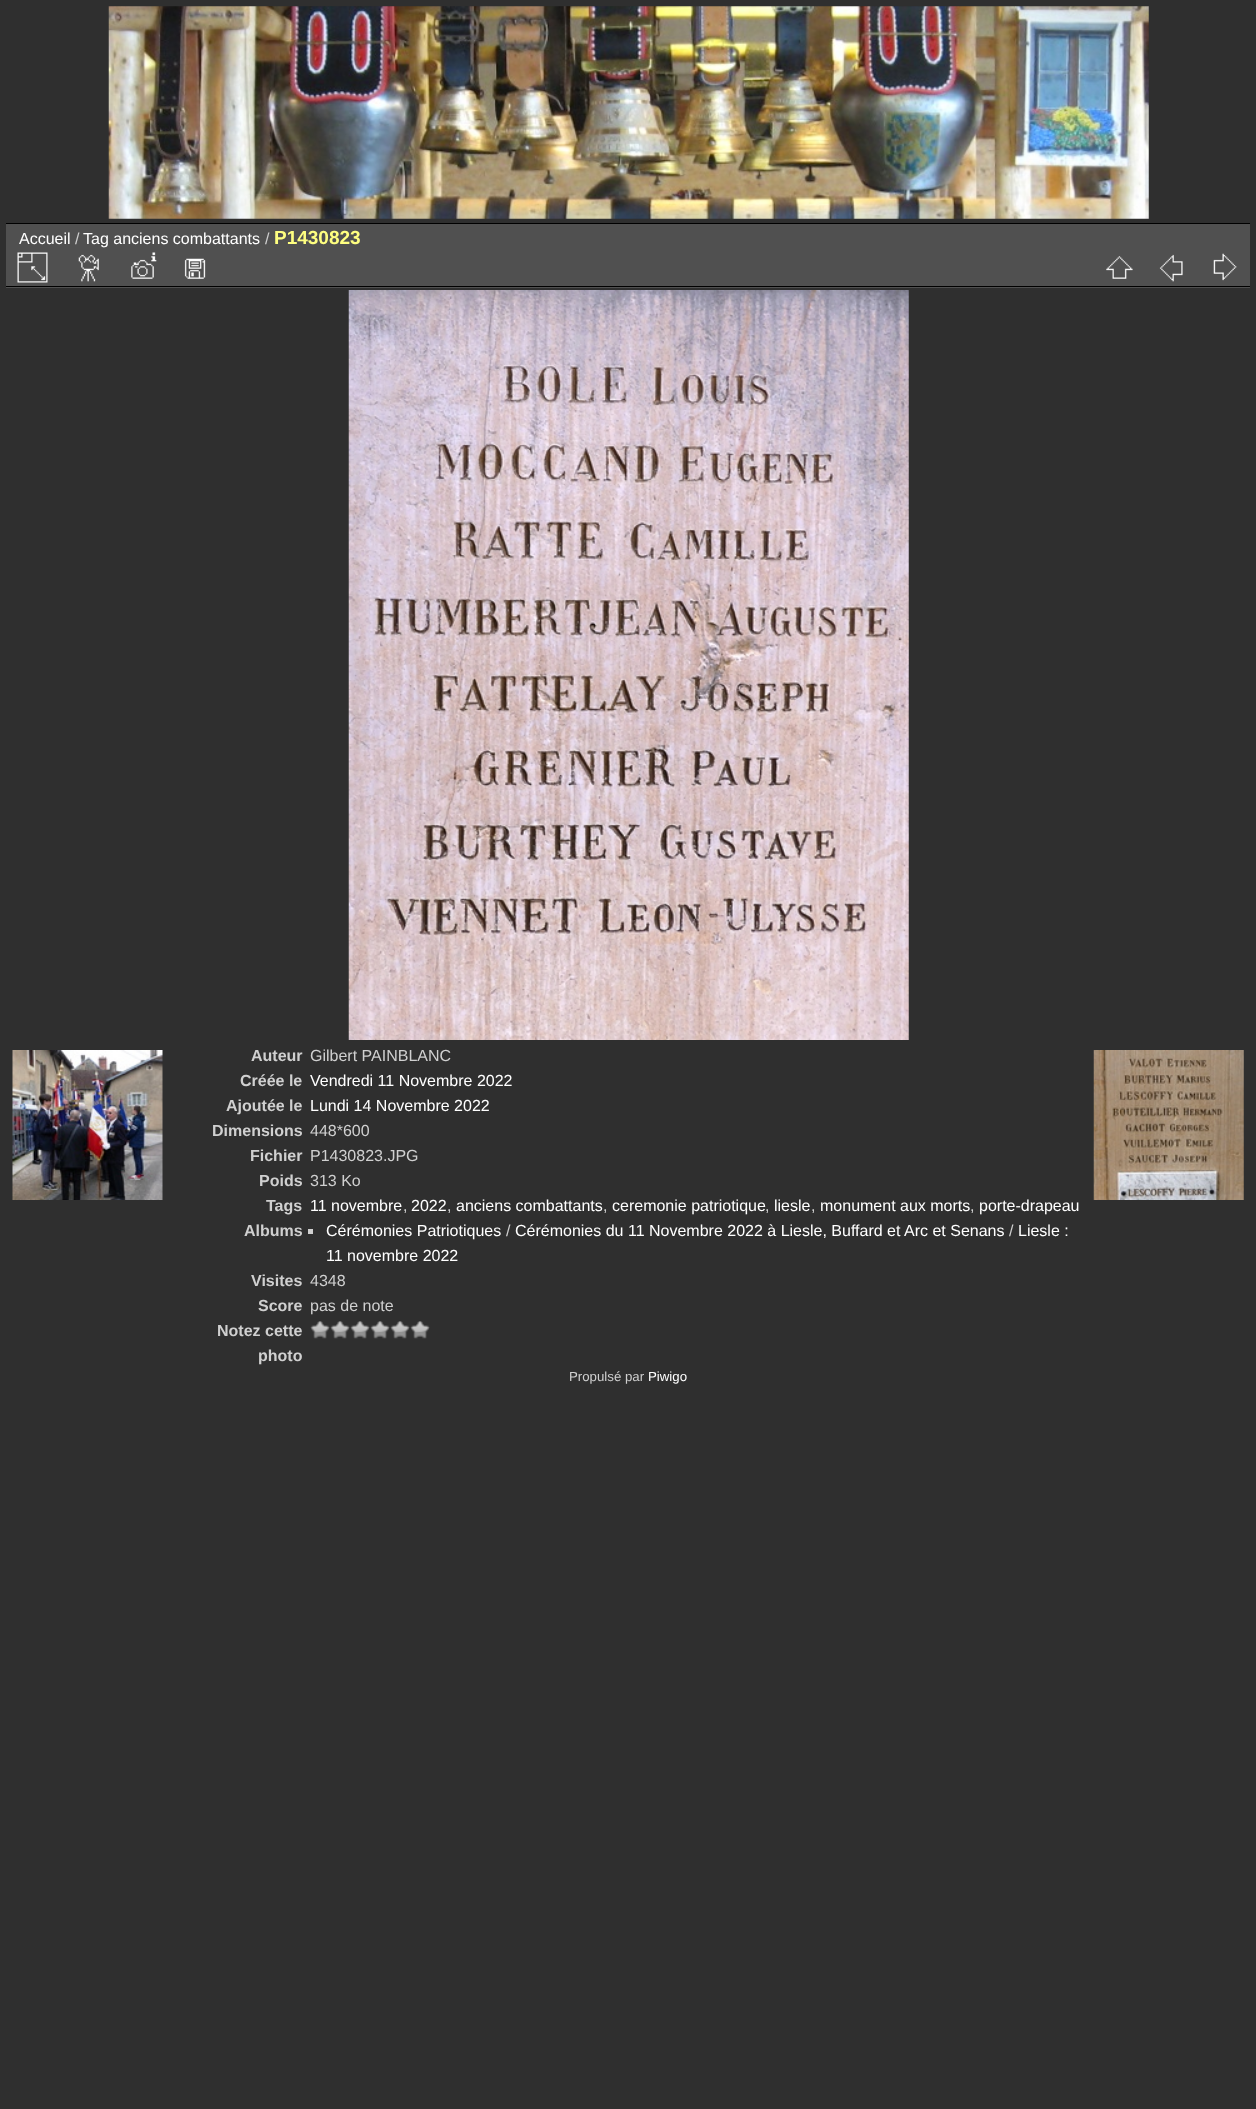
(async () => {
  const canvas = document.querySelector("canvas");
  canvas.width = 1256;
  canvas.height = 2109;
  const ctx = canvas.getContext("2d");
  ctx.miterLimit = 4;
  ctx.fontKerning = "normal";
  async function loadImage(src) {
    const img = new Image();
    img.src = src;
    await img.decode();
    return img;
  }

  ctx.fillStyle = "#2f2f2f";
  ctx.fillRect(0, 0, 1256, 2109);
  ctx.drawImage(await loadImage("img/1.png"), 108, 6, 1041, 213);
  ctx.fillStyle = "#505050";
  ctx.fillRect(6, 224, 1244, 64);
  ctx.fillStyle = "#000000";
  ctx.fillRect(6, 286, 1244, 1);
  ctx.drawImage(await loadImage("img/2.png"), 17, 252, 31, 31);
  ctx.drawImage(await loadImage("img/3.png"), 78, 254, 21, 28);
  ctx.drawImage(await loadImage("img/4.png"), 131, 252, 26, 27);
  ctx.drawImage(await loadImage("img/5.png"), 184, 258, 22, 21);
  ctx.drawImage(await loadImage("img/6.png"), 1106, 256, 27, 23);
  ctx.drawImage(await loadImage("img/7.png"), 1159, 254, 24, 28);
  ctx.drawImage(await loadImage("img/8.png"), 1213, 253, 24, 28);
  ctx.fillRect(6, 223, 1244, 1);
  ctx.drawImage(await loadImage("img/9.png"), 348, 290, 561, 750);
  ctx.fillStyle = "#d0d0d0";
  ctx.fillRect(308, 1229, 5, 5);
  ctx.drawImage(await loadImage("img/10.png"), 310, 1321, 20, 18);
  ctx.drawImage(await loadImage("img/10.png"), 330, 1321, 20, 18);
  ctx.drawImage(await loadImage("img/10.png"), 350, 1321, 20, 18);
  ctx.drawImage(await loadImage("img/10.png"), 370, 1321, 20, 18);
  ctx.drawImage(await loadImage("img/10.png"), 390, 1321, 20, 18);
  ctx.drawImage(await loadImage("img/10.png"), 410, 1321, 20, 18);
  ctx.drawImage(await loadImage("img/11.png"), 12, 1050, 151, 150);
  ctx.drawImage(await loadImage("img/12.png"), 1093, 1050, 151, 150);
  ctx.font = "16px Liberation Sans";
  ctx.fillStyle = "#ffffff";
  ctx.fillText("Accueil", 19, 244);
  ctx.fillStyle = "#d0d0d0";
  ctx.fillText("/", 75, 244);
  ctx.fillStyle = "#ffffff";
  ctx.fillText("Tag anciens combattants", 83, 244);
  ctx.fillStyle = "#d0d0d0";
  ctx.fillText("/", 265, 244);
  ctx.font = "bold 19px Liberation Sans";
  ctx.fillStyle = "#ffff80";
  ctx.fillText("P1430823", 274, 244);
  ctx.font = "bold 16px Liberation Sans";
  ctx.fillStyle = "#d0d0d0";
  ctx.fillText("Auteur", 251, 1061);
  ctx.font = "16px Liberation Sans";
  ctx.fillText("Gilbert PAINBLANC", 310, 1061);
  ctx.font = "bold 16px Liberation Sans";
  ctx.fillText("Créée le", 240, 1086);
  ctx.font = "16px Liberation Sans";
  ctx.fillStyle = "#ffffff";
  ctx.fillText("Vendredi 11 Novembre 2022", 310, 1086);
  ctx.font = "bold 16px Liberation Sans";
  ctx.fillStyle = "#d0d0d0";
  ctx.fillText("Ajoutée le", 226, 1111);
  ctx.font = "16px Liberation Sans";
  ctx.fillStyle = "#ffffff";
  ctx.fillText("Lundi 14 Novembre 2022", 310, 1111);
  ctx.font = "bold 16px Liberation Sans";
  ctx.fillStyle = "#d0d0d0";
  ctx.fillText("Dimensions", 212, 1136);
  ctx.font = "16px Liberation Sans";
  ctx.fillText("448*600", 310, 1136);
  ctx.font = "bold 16px Liberation Sans";
  ctx.fillText("Fichier", 250, 1161);
  ctx.font = "16px Liberation Sans";
  ctx.fillText("P1430823.JPG", 310, 1161);
  ctx.font = "bold 16px Liberation Sans";
  ctx.fillText("Poids", 259, 1186);
  ctx.font = "16px Liberation Sans";
  ctx.fillText("313 Ko", 310, 1186);
  ctx.font = "bold 16px Liberation Sans";
  ctx.fillText("Tags", 266, 1211);
  ctx.font = "16px Liberation Sans";
  ctx.fillStyle = "#ffffff";
  ctx.fillText("11 novembre", 310, 1211);
  ctx.fillStyle = "#d0d0d0";
  ctx.fillText(",", 403, 1211);
  ctx.fillStyle = "#ffffff";
  ctx.fillText("2022", 411, 1211);
  ctx.fillStyle = "#d0d0d0";
  ctx.fillText(",", 447, 1211);
  ctx.fillStyle = "#ffffff";
  ctx.fillText("anciens combattants", 456, 1211);
  ctx.fillStyle = "#d0d0d0";
  ctx.fillText(",", 603, 1211);
  ctx.fillStyle = "#ffffff";
  ctx.fillText("ceremonie patriotique", 612, 1211);
  ctx.fillStyle = "#d0d0d0";
  ctx.fillText(",", 765, 1211);
  ctx.fillStyle = "#ffffff";
  ctx.fillText("liesle", 774, 1211);
  ctx.fillStyle = "#d0d0d0";
  ctx.fillText(",", 811, 1211);
  ctx.fillStyle = "#ffffff";
  ctx.fillText("monument aux morts", 820, 1211);
  ctx.fillStyle = "#d0d0d0";
  ctx.fillText(",", 970, 1211);
  ctx.fillStyle = "#ffffff";
  ctx.fillText("porte-drapeau", 979, 1211);
  ctx.font = "bold 16px Liberation Sans";
  ctx.fillStyle = "#d0d0d0";
  ctx.fillText("Albums", 244, 1236);
  ctx.font = "16px Liberation Sans";
  ctx.fillStyle = "#ffffff";
  ctx.fillText("Cérémonies Patriotiques", 326, 1236);
  ctx.fillStyle = "#d0d0d0";
  ctx.fillText("/", 506, 1236);
  ctx.fillStyle = "#ffffff";
  ctx.fillText("Cérémonies du 11 Novembre 2022 à Liesle, Buffard et Arc et Senans", 515, 1236);
  ctx.fillStyle = "#d0d0d0";
  ctx.fillText("/", 1009, 1236);
  ctx.fillStyle = "#ffffff";
  ctx.fillText("Liesle :", 1018, 1236);
  ctx.fillText("11 novembre 2022", 326, 1261);
  ctx.font = "bold 16px Liberation Sans";
  ctx.fillStyle = "#d0d0d0";
  ctx.fillText("Visites", 251, 1286);
  ctx.font = "16px Liberation Sans";
  ctx.fillText("4348", 310, 1286);
  ctx.font = "bold 16px Liberation Sans";
  ctx.fillText("Score", 258, 1311);
  ctx.font = "16px Liberation Sans";
  ctx.fillText("pas de note", 310, 1311);
  ctx.font = "bold 16px Liberation Sans";
  ctx.fillText("Notez cette", 217, 1336);
  ctx.fillText("photo", 258, 1361);
  ctx.font = "13.25px Liberation Sans";
  ctx.fillText("Propulsé par", 569, 1381);
  ctx.fillStyle = "#ffffff";
  ctx.fillText("Piwigo", 648, 1381);
})();
